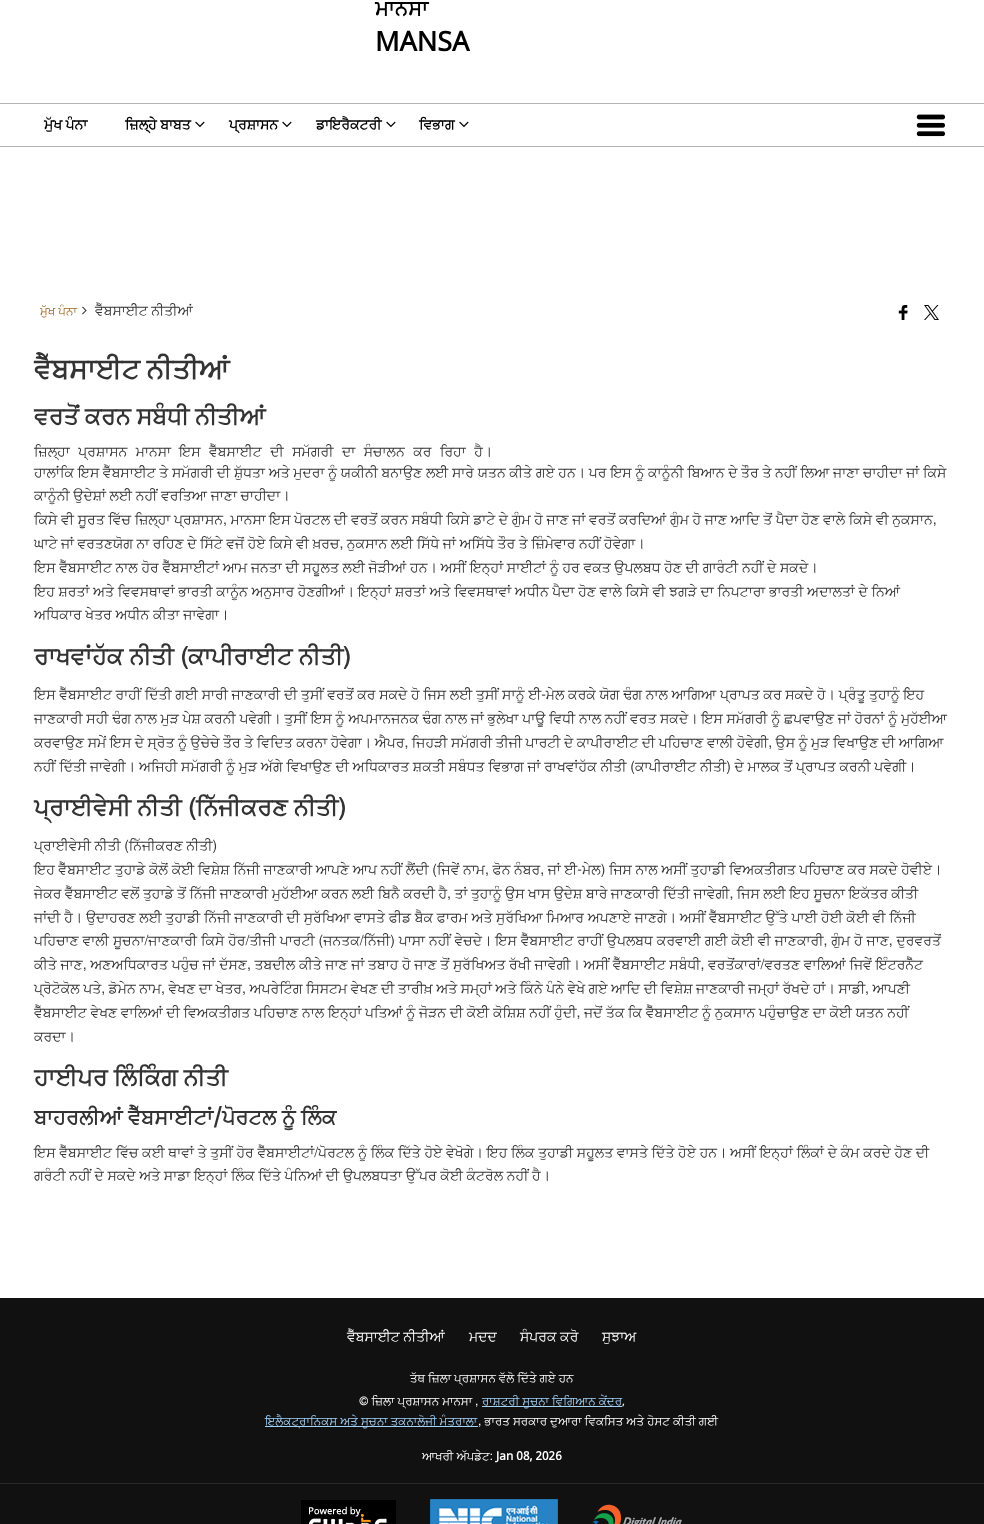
(async () => {
  const canvas = document.querySelector("canvas");
  canvas.width = 984;
  canvas.height = 1524;
  const ctx = canvas.getContext("2d");
  ctx.miterLimit = 4;
  ctx.fontKerning = "normal";
  async function loadImage(src) {
    const img = new Image();
    img.src = src;
    await img.decode();
    return img;
  }

  ctx.fillStyle = "#ffffff";
  ctx.fillRect(0, 0, 984, 1524);
  ctx.fillStyle = "#b3b3b3";
  ctx.fillRect(0, 103, 984, 1);
  ctx.fillRect(0, 146, 984, 1);
  ctx.drawImage(await loadImage("img/1.png"), 195, 121, 10, 7);
  ctx.drawImage(await loadImage("img/1.png"), 282, 121, 10, 7);
  ctx.drawImage(await loadImage("img/1.png"), 386, 121, 10, 7);
  ctx.drawImage(await loadImage("img/1.png"), 459, 121, 10, 7);
  ctx.drawImage(await loadImage("img/2.png"), 916, 114, 30, 23);
  ctx.drawImage(await loadImage("img/3.png"), 82, 306, 5, 9);
  ctx.drawImage(await loadImage("img/4.png"), 898, 305, 10, 15);
  ctx.drawImage(await loadImage("img/5.png"), 924, 305, 15, 15);
  for (const [x, y, w, h, color] of [
    [0, 1298, 984, 226, "#111111"],
    [482, 1406, 140, 1, "#a3d2f9"],
    [265, 1426, 213, 1, "#a3d2f9"],
    [0, 1483, 984, 1, "#292929"],
  ]) {
    ctx.fillStyle = color;
    ctx.fillRect(x, y, w, h);
  }
  ctx.drawImage(await loadImage("img/6.png"), 301, 1500, 95, 24);
  ctx.drawImage(await loadImage("img/7.png"), 430, 1499, 128, 25);
  ctx.drawImage(await loadImage("img/8.png"), 593, 1504, 89, 20);
  ctx.font = "bold 21px FreeSans";
  ctx.fillStyle = "#000000";
  ctx.fillText("ਮਾਨਸਾ", 375, 15);
  ctx.font = "bold 27px Noto Sans";
  ctx.fillText("MANSA", 375, 51);
  ctx.font = "bold 14px FreeSans";
  for (const [text, x, y] of [
    ["ਮੁੱਖ ਪੰਨਾ", 44, 129],
    ["ਜ਼ਿਲ੍ਹੇ ਬਾਬਤ", 125, 129],
    ["ਪ੍ਰਸ਼ਾਸਨ", 229, 129],
    ["ਡਾਇਰੈਕਟਰੀ", 316, 129],
    ["ਵਿਭਾਗ", 419, 129],
  ]) {
    ctx.fillText(text, x, y);
  }
  ctx.font = "11.9px FreeSans";
  ctx.fillStyle = "#9e6b22";
  ctx.fillText("ਮੁੱਖ ਪੰਨਾ", 40, 315);
  ctx.font = "14px FreeSans";
  ctx.fillStyle = "#333333";
  ctx.fillText("ਵੈੱਬਸਾਈਟ ਨੀਤੀਆਂ", 95, 315);
  ctx.font = "bold 28px FreeSans";
  ctx.fillText("ਵੈੱਬਸਾਈਟ ਨੀਤੀਆਂ", 34, 378);
  ctx.font = "bold 23.75px FreeSans";
  ctx.fillText("ਵਰਤੋਂ ਕਰਨ ਸਬੰਧੀ ਨੀਤੀਆਂ", 34, 424);
  ctx.wordSpacing = "5px";
  ctx.font = "14px FreeSans";
  ctx.fillText("ਜ਼ਿਲ੍ਹਾ ਪ੍ਰਸ਼ਾਸਨ ਮਾਨਸਾ", 34, 456);
  ctx.fillText("ਇਸ ਵੈੱਬਸਾਈਟ ਦੀ ਸਮੱਗਰੀ ਦਾ ਸੰਚਾਲਨ ਕਰ ਰਿਹਾ ਹੈ।", 179, 456);
  ctx.wordSpacing = "0.15px";
  for (const [text, x, y] of [
    ["ਹਾਲਾਂਕਿ ਇਸ ਵੈੱਬਸਾਈਟ ਤੇ ਸਮੱਗਰੀ ਦੀ ਸ਼ੁੱਧਤਾ ਅਤੇ ਮੁਦਰਾ ਨੂੰ ਯਕੀਨੀ ਬਨਾਉਣ ਲਈ ਸਾਰੇ ਯਤਨ ਕੀਤੇ ਗਏ ਹਨ। ਪਰ ਇਸ ਨੂੰ ਕਾਨੂੰਨੀ ਬਿਆਨ ਦੇ ਤੌਰ ਤੇ ਨਹੀਂ ਲਿਆ ਜਾਣਾ ਚਾਹੀਦਾ ਜਾਂ ਕਿਸੇ", 34, 477],
    ["ਕਾਨੂੰਨੀ ਉਦੇਸ਼ਾਂ ਲਈ ਨਹੀਂ ਵਰਤਿਆ ਜਾਣਾ ਚਾਹੀਦਾ।", 34, 500],
    ["ਕਿਸੇ ਵੀ ਸੂਰਤ ਵਿੱਚ ਜ਼ਿਲ੍ਹਾ", 34, 524],
  ]) {
    ctx.fillText(text, x, y);
  }
  ctx.wordSpacing = "0px";
  ctx.fillText("ਪ੍ਰਸ਼ਾਸਨ, ਮਾਨਸਾ", 174, 524);
  ctx.wordSpacing = "0.1px";
  ctx.fillText("ਇਸ ਪੋਰਟਲ ਦੀ ਵਰਤੋਂ ਕਰਨ ਸਬੰਧੀ ਕਿਸੇ ਡਾਟੇ ਦੇ ਗੁੰਮ ਹੋ ਜਾਣ ਜਾਂ ਵਰਤੋਂ ਕਰਦਿਆਂ ਗੁੰਮ ਹੋ ਜਾਣ ਆਦਿ ਤੋਂ ਪੈਦਾ ਹੋਣ ਵਾਲੇ ਕਿਸੇ ਵੀ ਨੁਕਸਾਨ,", 269, 524);
  ctx.wordSpacing = "0px";
  ctx.fillText("ਘਾਟੇ ਜਾਂ ਵਰਤਣਯੋਗ ਨਾ ਰਹਿਣ ਦੇ ਸਿੱਟੇ ਵਜੋਂ ਹੋਏ ਕਿਸੇ ਵੀ ਖ਼ਰਚ, ਨੁਕਸਾਨ ਲਈ ਸਿੱਧੇ ਜਾਂ ਅਸਿੱਧੇ ਤੌਰ ਤੇ ਜ਼ਿੰਮੇਵਾਰ ਨਹੀਂ ਹੋਵੇਗਾ।", 34, 548);
  ctx.wordSpacing = "0.15px";
  for (const [text, x, y] of [
    ["ਇਸ ਵੈੱਬਸਾਈਟ ਨਾਲ ਹੋਰ ਵੈੱਬਸਾਈਟਾਂ ਆਮ ਜਨਤਾ ਦੀ ਸਹੂਲਤ ਲਈ ਜੋੜੀਆਂ ਹਨ। ਅਸੀਂ ਇਨ੍ਹਾਂ ਸਾਈਟਾਂ ਨੂੰ ਹਰ ਵਕਤ ਉਪਲਬਧ ਹੋਣ ਦੀ ਗਾਰੰਟੀ ਨਹੀਂ ਦੇ ਸਕਦੇ।", 34, 572],
    ["ਇਹ ਸ਼ਰਤਾਂ ਅਤੇ ਵਿਵਸਥਾਵਾਂ ਭਾਰਤੀ ਕਾਨੂੰਨ ਅਨੁਸਾਰ ਹੋਣਗੀਆਂ। ਇਨ੍ਹਾਂ ਸ਼ਰਤਾਂ ਅਤੇ ਵਿਵਸਥਾਵਾਂ ਅਧੀਨ ਪੈਦਾ ਹੋਣ ਵਾਲੇ ਕਿਸੇ ਵੀ ਝਗੜੇ ਦਾ ਨਿਪਟਾਰਾ ਭਾਰਤੀ ਅਦਾਲਤਾਂ ਦੇ ਨਿਆਂ", 34, 596],
    ["ਅਧਿਕਾਰ ਖੇਤਰ ਅਧੀਨ ਕੀਤਾ ਜਾਵੇਗਾ।", 34, 619],
  ]) {
    ctx.fillText(text, x, y);
  }
  ctx.wordSpacing = "0.5px";
  ctx.font = "bold 23.75px FreeSans";
  ctx.fillText("ਰਾਖਵਾਂਹੱਕ ਨੀਤੀ (ਕਾਪੀਰਾਈਟ ਨੀਤੀ)", 34, 664);
  ctx.wordSpacing = "0.15px";
  ctx.font = "14px FreeSans";
  ctx.fillText("ਇਸ ਵੈੱਬਸਾਈਟ ਰਾਹੀਂ ਦਿੱਤੀ ਗਈ ਸਾਰੀ ਜਾਣਕਾਰੀ ਦੀ ਤੁਸੀਂ ਵਰਤੋਂ ਕਰ ਸਕਦੇ ਹੋ ਜਿਸ ਲਈ ਤੁਸੀਂ ਸਾਨੂੰ ਈ-ਮੇਲ ਕਰਕੇ ਯੋਗ ਢੰਗ ਨਾਲ ਆਗਿਆ ਪ੍ਰਾਪਤ ਕਰ ਸਕਦੇ ਹੋ। ਪ੍ਰੰਤੂ ਤੁਹਾਨੂੰ ਇਹ", 34, 699);
  ctx.fillText("ਜਾਣਕਾਰੀ ਸਹੀ ਢੰਗ ਨਾਲ ਮੁੜ ਪੇਸ਼ ਕਰਨੀ ਪਵੇਗੀ। ਤੁਸੀਂ ਇਸ ਨੂੰ ਅਪਮਾਨਜਨਕ ਢੰਗ ਨਾਲ ਜਾਂ ਭੁਲੇਖਾ ਪਾਊ ਵਿਧੀ ਨਾਲ ਨਹੀਂ ਵਰਤ ਸਕਦੇ। ਇਸ ਸਮੱਗਰੀ ਨੂੰ ਛਪਵਾਉਣ ਜਾਂ ਹੋਰਨਾਂ ਨੂੰ ਮੁਹੱਈਆ", 34, 723);
  ctx.wordSpacing = "0px";
  ctx.fillText("ਕਰਵਾਉਣ ਸਮੇਂ ਇਸ ਦੇ ਸ੍ਰੋਤ ਨੂੰ ਉਚੇਚੇ ਤੌਰ ਤੇ ਵਿਦਿਤ ਕਰਨਾ ਹੋਵੇਗਾ। ਐਪਰ, ਜਿਹੜੀ ਸਮੱਗਰੀ ਤੀਜੀ ਪਾਰਟੀ ਦੇ ਕਾਪੀਰਾਈਟ ਦੀ ਪਹਿਚਾਣ ਵਾਲੀ ਹੋਵੇਗੀ, ਉਸ ਨੂੰ ਮੁੜ ਵਿਖਾਉਣ ਦੀ ਆਗਿਆ", 34, 747);
  ctx.wordSpacing = "0.2px";
  ctx.fillText("ਨਹੀਂ ਦਿੱਤੀ ਜਾਵੇਗੀ। ਅਜਿਹੀ ਸਮੱਗਰੀ ਨੂੰ ਮੁੜ ਅੱਗੇ ਵਿਖਾਉਣ ਦੀ ਅਧਿਕਾਰਤ ਸ਼ਕਤੀ ਸਬੰਧਤ ਵਿਭਾਗ ਜਾਂ ਰਾਖਵਾਂਹੱਕ ਨੀਤੀ (ਕਾਪੀਰਾਈਟ ਨੀਤੀ) ਦੇ ਮਾਲਕ ਤੋਂ ਪ੍ਰਾਪਤ ਕਰਨੀ ਪਵੇਗੀ।", 34, 771);
  ctx.wordSpacing = "0.5px";
  ctx.font = "bold 23.75px FreeSans";
  ctx.fillText("ਪ੍ਰਾਈਵੇਸੀ ਨੀਤੀ (ਨਿੱਜੀਕਰਣ ਨੀਤੀ)", 34, 815);
  ctx.wordSpacing = "0px";
  ctx.font = "14px FreeSans";
  ctx.fillText("ਪ੍ਰਾਈਵੇਸੀ ਨੀਤੀ (ਨਿੱਜੀਕਰਣ ਨੀਤੀ)", 34, 850);
  ctx.wordSpacing = "0.1px";
  ctx.fillText("ਇਹ ਵੈੱਬਸਾਈਟ ਤੁਹਾਡੇ ਕੋਲੋਂ ਕੋਈ ਵਿਸ਼ੇਸ਼ ਨਿੱਜੀ ਜਾਣਕਾਰੀ ਆਪਣੇ ਆਪ ਨਹੀਂ ਲੈਂਦੀ (ਜਿਵੇਂ ਨਾਮ, ਫੋਨ ਨੰਬਰ, ਜਾਂ ਈ-ਮੇਲ) ਜਿਸ ਨਾਲ ਅਸੀਂ ਤੁਹਾਡੀ ਵਿਅਕਤੀਗਤ ਪਹਿਚਾਣ ਕਰ ਸਕਦੇ ਹੋਵੀਏ।", 34, 874);
  ctx.wordSpacing = "0px";
  ctx.fillText("ਜੇਕਰ ਵੈੱਬਸਾਈਟ ਵਲੋਂ ਤੁਹਾਡੇ ਤੋਂ ਨਿੱਜੀ ਜਾਣਕਾਰੀ ਮੁਹੱਈਆ ਕਰਨ ਲਈ ਬਿਨੈ ਕਰਦੀ ਹੈ, ਤਾਂ ਤੁਹਾਨੂੰ ਉਸ ਖਾਸ ਉਦੇਸ਼ ਬਾਰੇ ਜਾਣਕਾਰੀ ਦਿੱਤੀ ਜਾਵੇਗੀ, ਜਿਸ ਲਈ ਇਹ ਸੂਚਨਾ ਇਕੱਤਰ ਕੀਤੀ", 34, 898);
  ctx.wordSpacing = "0.15px";
  ctx.fillText("ਜਾਂਦੀ ਹੈ। ਉਦਾਹਰਣ ਲਈ ਤੁਹਾਡੀ ਨਿੱਜੀ ਜਾਣਕਾਰੀ ਦੀ ਸੁਰੱਖਿਆ ਵਾਸਤੇ ਫੀਡ ਬੈਕ ਫਾਰਮ ਅਤੇ ਸੁਰੱਖਿਆ ਮਿਆਰ ਅਪਣਾਏ ਜਾਣਗੇ। ਅਸੀਂ ਵੈੱਬਸਾਈਟ ਉੱਤੇ ਪਾਈ ਹੋਈ ਕੋਈ ਵੀ ਨਿੱਜੀ", 34, 922);
  ctx.wordSpacing = "0.4px";
  ctx.fillText("ਪਹਿਚਾਣ ਵਾਲੀ ਸੂਚਨਾ/ਜਾਣਕਾਰੀ ਕਿਸੇ ਹੋਰ/ਤੀਜੀ ਪਾਰਟੀ (ਜਨਤਕ/ਨਿੱਜੀ) ਪਾਸਾ ਨਹੀਂ ਵੇਚਦੇ। ਇਸ ਵੈੱਬਸਾਈਟ ਰਾਹੀਂ ਉਪਲਬਧ ਕਰਵਾਈ ਗਈ ਕੋਈ ਵੀ ਜਾਣਕਾਰੀ, ਗੁੰਮ ਹੋ ਜਾਣ, ਦੁਰਵਰਤੋਂ", 34, 945);
  ctx.wordSpacing = "0.2px";
  ctx.fillText("ਕੀਤੇ ਜਾਣ, ਅਣਅਧਿਕਾਰਤ ਪਹੁੰਚ ਜਾਂ ਦੱਸਣ, ਤਬਦੀਲ ਕੀਤੇ ਜਾਣ ਜਾਂ ਤਬਾਹ ਹੋ ਜਾਣ ਤੋਂ ਸੁਰੱਖਿਅਤ ਰੱਖੀ ਜਾਵੇਗੀ। ਅਸੀਂ ਵੈੱਬਸਾਈਟ ਸਬੰਧੀ, ਵਰਤੋਂਕਾਰਾਂ/ਵਰਤਣ ਵਾਲਿਆਂ ਜਿਵੇਂ ਇੰਟਰਨੈੱਟ", 34, 969);
  ctx.wordSpacing = "0px";
  ctx.fillText("ਪ੍ਰੋਟੋਕੋਲ ਪਤੇ, ਡੋਮੇਨ ਨਾਮ, ਵੇਖਣ ਦਾ ਖੇਤਰ, ਅਪਰੇਟਿੰਗ ਸਿਸਟਮ ਵੇਖਣ ਦੀ ਤਾਰੀਖ਼ ਅਤੇ ਸਮ੍ਹਾਂ ਅਤੇ ਕਿੰਨੇ ਪੰਨੇ ਵੇਖੇ ਗਏ ਆਦਿ ਦੀ ਵਿਸ਼ੇਸ਼ ਜਾਣਕਾਰੀ ਜਮ੍ਹਾਂ ਰੱਖਦੇ ਹਾਂ। ਸਾਡੀ, ਆਪਣੀ", 34, 993);
  ctx.wordSpacing = "0.1px";
  ctx.fillText("ਵੈੱਬਸਾਈਟ ਵੇਖਣ ਵਾਲਿਆਂ ਦੀ ਵਿਅਕਤੀਗਤ ਪਹਿਚਾਣ ਨਾਲ ਇਨ੍ਹਾਂ ਪਤਿਆਂ ਨੂੰ ਜੋੜਨ ਦੀ ਕੋਈ ਕੋਸ਼ਿਸ਼ ਨਹੀਂ ਹੁੰਦੀ, ਜਦੋਂ ਤੱਕ ਕਿ ਵੈੱਬਸਾਈਟ ਨੂੰ ਨੁਕਸਾਨ ਪਹੁੰਚਾਉਣ ਦਾ ਕੋਈ ਯਤਨ ਨਹੀਂ", 34, 1017);
  ctx.wordSpacing = "0px";
  ctx.fillText("ਕਰਦਾ।", 34, 1041);
  ctx.font = "bold 23.75px FreeSans";
  ctx.fillText("ਹਾਈਪਰ ਲਿੰਕਿੰਗ ਨੀਤੀ", 34, 1085);
  ctx.wordSpacing = "0.2px";
  ctx.font = "bold 21px FreeSans";
  ctx.fillText("ਬਾਹਰਲੀਆਂ ਵੈੱਬਸਾਈਟਾਂ", 34, 1124);
  ctx.wordSpacing = "0px";
  ctx.font = "bold 21px Noto Sans";
  ctx.fillText("/", 213, 1124);
  ctx.wordSpacing = "0.2px";
  ctx.font = "bold 21px FreeSans";
  ctx.fillText("ਪੋਰਟਲ ਨੂੰ ਲਿੰਕ", 222, 1124);
  ctx.font = "14px FreeSans";
  ctx.fillText("ਇਸ ਵੈੱਬਸਾਈਟ ਵਿੱਚ ਕਈ ਥਾਵਾਂ ਤੇ ਤੁਸੀਂ ਹੋਰ ਵੈੱਬਸਾਈਟਾਂ/ਪੋਰਟਲ ਨੂੰ ਲਿੰਕ ਦਿੱਤੇ ਹੋਏ ਵੇਖੋਗੇ। ਇਹ ਲਿੰਕ ਤੁਹਾਡੀ ਸਹੂਲਤ ਵਾਸਤੇ ਦਿੱਤੇ ਹੋਏ ਹਨ। ਅਸੀਂ ਇਨ੍ਹਾਂ ਲਿੰਕਾਂ ਦੇ ਕੰਮ ਕਰਦੇ ਹੋਣ ਦੀ", 34, 1157);
  ctx.wordSpacing = "0.15px";
  ctx.fillText("ਗਰੰਟੀ ਨਹੀਂ ਦੇ ਸਕਦੇ ਅਤੇ ਸਾਡਾ ਇਨ੍ਹਾਂ ਲਿੰਕ ਦਿੱਤੇ ਪੰਨਿਆਂ ਦੀ ਉਪਲਬਧਤਾ ਉੱਪਰ ਕੋਈ ਕੰਟਰੋਲ ਨਹੀਂ ਹੈ।", 34, 1180);
  ctx.wordSpacing = "0px";
  ctx.fillStyle = "#ffffff";
  for (const [text, x, y] of [
    ["ਵੈੱਬਸਾਈਟ ਨੀਤੀਆਂ", 347, 1341],
    ["ਮਦਦ", 469, 1341],
    ["ਸੰਪਰਕ ਕਰੋ", 520, 1341],
    ["ਸੁਝਾਅ", 602, 1341],
  ]) {
    ctx.fillText(text, x, y);
  }
  ctx.font = "11.9px FreeSans";
  ctx.fillText("ਤੱਥ ਜ਼ਿਲਾ ਪ੍ਰਸ਼ਾਸਨ ਵੱਲੋ ਦਿੱਤੇ ਗਏ ਹਨ", 410, 1382);
  ctx.fillText("© ਜ਼ਿਲਾ ਪ੍ਰਸ਼ਾਸਨ ਮਾਨਸਾ ,", 359, 1405);
  ctx.fillStyle = "#a3d2f9";
  ctx.fillText("ਰਾਸ਼ਟਰੀ ਸੂਚਨਾ ਵਿਗਿਆਨ ਕੇਂਦਰ", 482, 1405);
  ctx.font = "11.9px Noto Sans";
  ctx.fillStyle = "#ffffff";
  ctx.fillText(",", 622, 1405);
  ctx.font = "11.9px FreeSans";
  ctx.fillStyle = "#a3d2f9";
  ctx.fillText("ਇਲੈਕਟ੍ਰਾਨਿਕਸ ਅਤੇ ਸੂਚਨਾ ਤਕਨਾਲੋਜੀ ਮੰਤਰਾਲਾ", 265, 1425);
  ctx.fillStyle = "#ffffff";
  ctx.fillText(", ਭਾਰਤ ਸਰਕਾਰ ਦੁਆਰਾ ਵਿਕਸਿਤ ਅਤੇ ਹੋਸਟ ਕੀਤੀ ਗਈ", 478, 1425);
  ctx.fillText("ਆਖਰੀ ਅੱਪਡੇਟ:", 422, 1460);
  ctx.font = "bold 11.9px Noto Sans";
  ctx.fillText("Jan 08, 2026", 496, 1460);
})();
